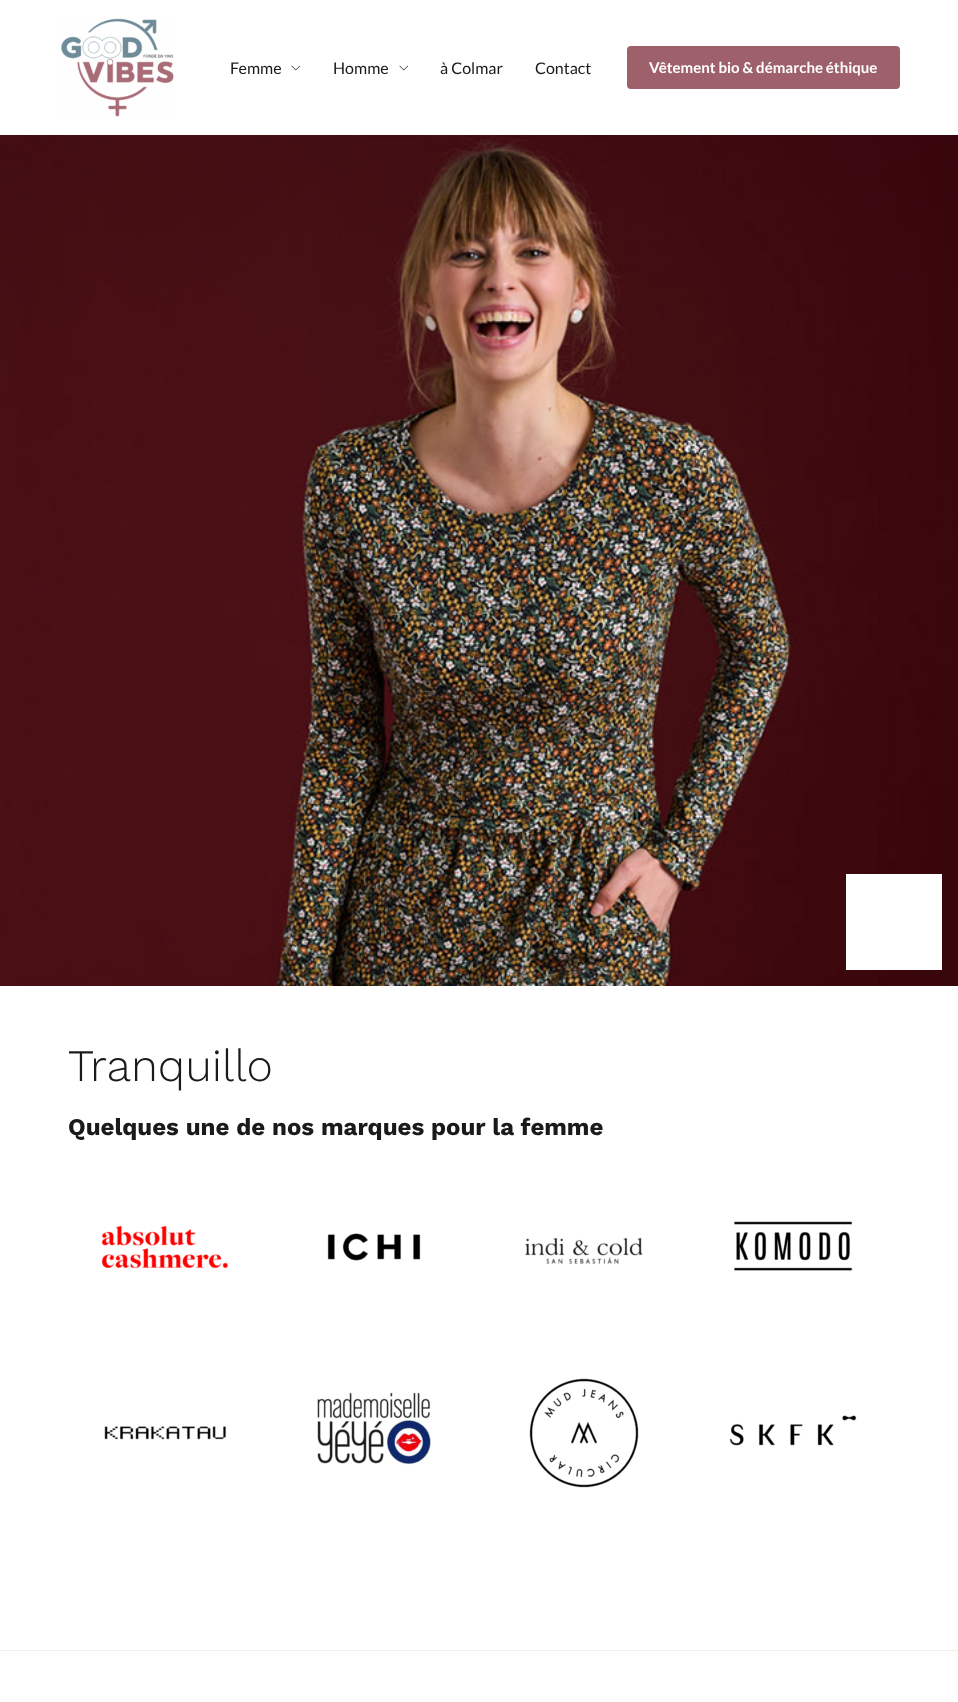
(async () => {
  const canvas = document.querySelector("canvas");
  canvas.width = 958;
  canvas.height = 1702;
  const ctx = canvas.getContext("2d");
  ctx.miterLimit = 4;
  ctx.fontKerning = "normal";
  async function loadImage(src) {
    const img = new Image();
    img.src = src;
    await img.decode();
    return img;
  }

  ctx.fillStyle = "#ffffff";
  ctx.fillRect(0, 0, 958, 1702);
  ctx.drawImage(await loadImage("img/1.png"), 61, 18, 113, 99);
  ctx.drawImage(await loadImage("img/2.png"), 291, 65, 9, 6);
  ctx.drawImage(await loadImage("img/2.png"), 399, 65, 9, 6);
  ctx.fillStyle = "#9e616b";
  ctx.beginPath();
  ctx.roundRect(627, 46, 273, 43, 4);
  ctx.fill();
  ctx.drawImage(await loadImage("img/3.png"), 0, 135, 958, 851);
  ctx.fillStyle = "#ffffff";
  ctx.fillRect(846, 874, 96, 96);
  ctx.drawImage(await loadImage("img/4.png"), 101, 1225, 127, 44);
  ctx.drawImage(await loadImage("img/5.png"), 327, 1233, 94, 28);
  ctx.drawImage(await loadImage("img/6.png"), 525, 1237, 118, 27);
  ctx.drawImage(await loadImage("img/7.png"), 734, 1221, 119, 50);
  ctx.drawImage(await loadImage("img/8.png"), 104, 1426, 123, 14);
  ctx.drawImage(await loadImage("img/9.png"), 317, 1392, 115, 73);
  ctx.drawImage(await loadImage("img/10.png"), 529, 1378, 110, 110);
  ctx.drawImage(await loadImage("img/11.png"), 729, 1415, 128, 31);
  ctx.fillStyle = "#f4ebea";
  ctx.fillRect(0, 1650, 958, 1);
  ctx.font = "16px Lato";
  ctx.fillStyle = "#191a1a";
  for (const [text, x, y] of [
    ["Femme", 230, 74],
    ["Homme", 333, 74],
    ["à Colmar", 440, 74],
    ["Contact", 535, 74],
  ]) {
    ctx.fillText(text, x, y);
  }
  ctx.font = "bold 15px Lato";
  ctx.fillStyle = "#ffffff";
  ctx.fillText("Vêtement bio & démarche éthique", 649, 73);
  ctx.font = "300 45px Work Sans";
  ctx.fillStyle = "#191a1a";
  ctx.fillText("Tranquillo", 68, 1081);
  ctx.font = "bold 24px Work Sans";
  ctx.fillText("Quelques une de nos marques pour la femme", 68, 1135);
})();
